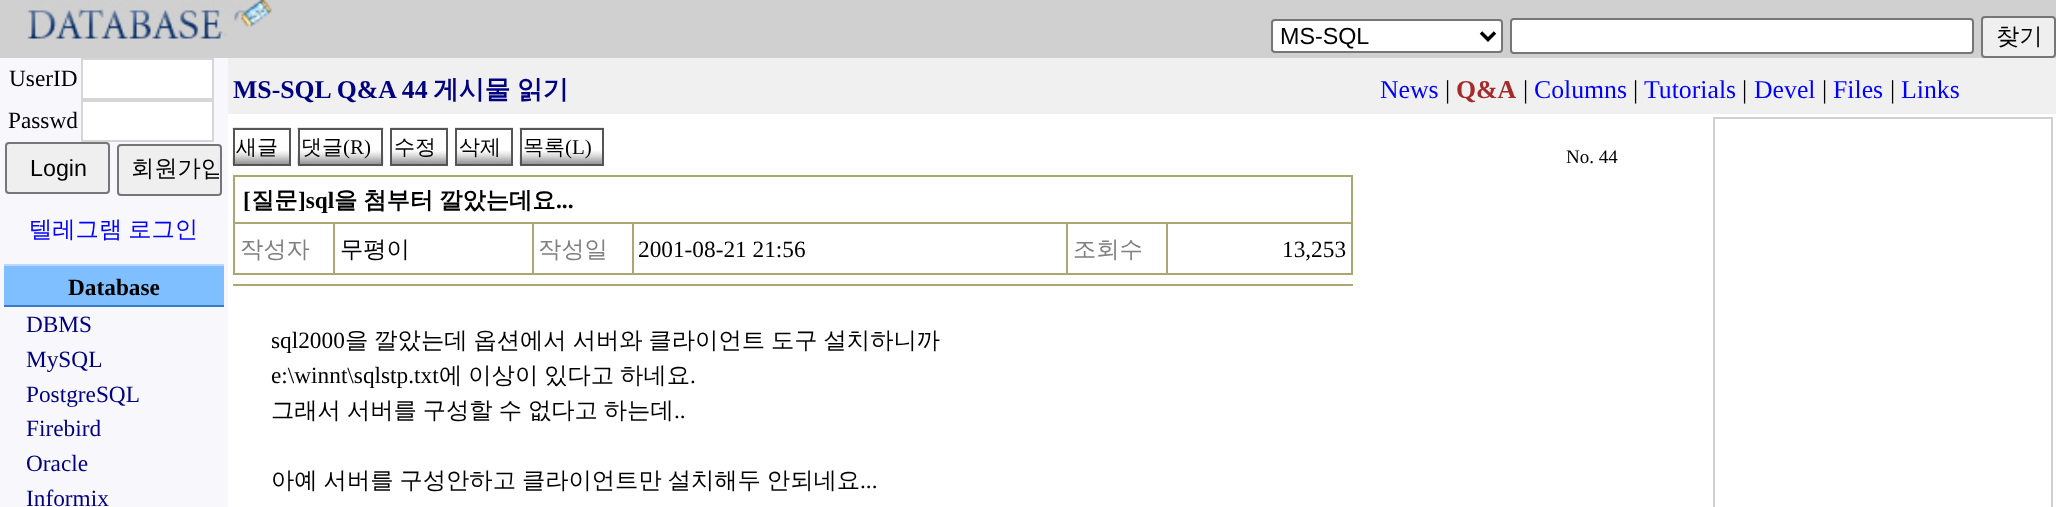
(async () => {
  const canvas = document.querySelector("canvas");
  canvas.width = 2056;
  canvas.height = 507;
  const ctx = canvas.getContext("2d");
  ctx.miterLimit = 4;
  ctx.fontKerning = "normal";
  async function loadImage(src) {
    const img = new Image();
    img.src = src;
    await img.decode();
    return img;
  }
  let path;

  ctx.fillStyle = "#ffffff";
  ctx.fillRect(0, 0, 2056, 507);
  ctx.fillStyle = "#d0d0d0";
  ctx.fillRect(0, 0, 2056, 58);
  ctx.drawImage(await loadImage("img/1.png"), 27, 0, 245, 39);
  ctx.fillStyle = "#ffffff";
  ctx.beginPath();
  ctx.roundRect(1272, 20, 230, 32, 3);
  ctx.fill();
  ctx.strokeStyle = "#767676";
  ctx.lineWidth = 2;
  ctx.stroke();
  path = new Path2D("M1481 32.5L1488 39.5L1495 32.5");
  ctx.strokeStyle = "#000000";
  ctx.lineWidth = 3.5;
  ctx.stroke(path);
  ctx.beginPath();
  ctx.roundRect(1511, 19, 462, 34, 3);
  ctx.fill();
  ctx.strokeStyle = "#767676";
  ctx.lineWidth = 2;
  ctx.stroke();
  ctx.fillStyle = "#efefef";
  ctx.beginPath();
  ctx.roundRect(1982, 17, 73, 40, 3);
  ctx.fill();
  ctx.stroke();
  ctx.fillStyle = "#f7f7fc";
  ctx.fillRect(0, 58, 228, 449);
  ctx.fillStyle = "#ffffff";
  ctx.beginPath();
  ctx.rect(82, 59, 131, 40);
  ctx.fill();
  ctx.strokeStyle = "#d6d6d6";
  ctx.stroke();
  ctx.beginPath();
  ctx.rect(82, 101, 131, 40);
  ctx.fill();
  ctx.stroke();
  ctx.fillStyle = "#efefef";
  ctx.beginPath();
  ctx.roundRect(6, 143, 103, 50, 3);
  ctx.fill();
  ctx.strokeStyle = "#767676";
  ctx.stroke();
  ctx.beginPath();
  ctx.roundRect(118, 145, 103, 50, 3);
  ctx.fill();
  ctx.stroke();
  for (const [x, y, w, h, color] of [
    [4, 266, 220, 39, "#80bfff"],
    [4, 264, 220, 2, "#bbd7fc"],
    [4, 305, 220, 2, "#377dc5"],
    [228, 58, 1828, 56, "#f0f0f0"],
  ]) {
    ctx.fillStyle = color;
    ctx.fillRect(x, y, w, h);
  }
  ctx.drawImage(await loadImage("img/2.png"), 232, 127, 59, 39);
  ctx.strokeStyle = "#555555";
  ctx.strokeRect(234, 129, 56, 36);
  ctx.drawImage(await loadImage("img/3.png"), 297, 127, 87, 39);
  ctx.strokeRect(299, 129, 83, 36);
  ctx.drawImage(await loadImage("img/4.png"), 390, 127, 58, 37);
  ctx.strokeRect(391, 129, 56, 36);
  ctx.drawImage(await loadImage("img/5.png"), 455, 127, 58, 37);
  ctx.strokeRect(456, 129, 56, 36);
  ctx.drawImage(await loadImage("img/6.png"), 519, 127, 85, 39);
  ctx.strokeRect(521, 129, 82, 36);
  for (const [x, y, w, h, color] of [
    [233, 175, 1120, 2, "#aca673"],
    [233, 175, 2, 100, "#aca673"],
    [1351, 177, 2, 98, "#aca673"],
    [235, 222, 1118, 2, "#aca673"],
    [333, 224, 2, 51, "#aca673"],
    [235, 273, 99, 2, "#aca673"],
    [532, 224, 2, 51, "#aca673"],
    [334, 273, 200, 2, "#aca673"],
    [632, 224, 2, 51, "#aca673"],
    [534, 273, 100, 2, "#aca673"],
    [1066, 224, 2, 51, "#aca673"],
    [634, 273, 434, 2, "#aca673"],
    [1166, 224, 2, 51, "#aca673"],
    [1068, 273, 285, 2, "#aca673"],
    [233, 284, 1120, 2, "#aca673"],
  ]) {
    ctx.fillStyle = color;
    ctx.fillRect(x, y, w, h);
  }
  ctx.strokeStyle = "#d0d0d0";
  ctx.strokeRect(1714, 118, 338, 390);
  ctx.font = "23.3px Liberation Sans";
  ctx.fillStyle = "#000000";
  ctx.fillText("MS-SQL", 1280, 44);
  ctx.font = "500 23.3px WenQuanYi Zen Hei";
  ctx.fillText("찾기", 1996, 44);
  ctx.font = "23.3px Liberation Serif";
  ctx.fillText("UserID", 9, 86);
  ctx.fillText("Passwd", 8, 128);
  ctx.font = "23.3px Liberation Sans";
  ctx.fillText("Login", 30, 176);
  ctx.save();
  ctx.beginPath();
  ctx.rect(121, 147, 98, 46);
  ctx.clip();
  ctx.font = "500 23.3px WenQuanYi Zen Hei";
  ctx.fillText("회원가입", 131, 176);
  ctx.restore();
  ctx.wordSpacing = "-1px";
  ctx.font = "500 23.3px WenQuanYi Zen Hei";
  ctx.fillStyle = "#0000ff";
  ctx.fillText("텔레그램 로그인", 29, 237);
  ctx.wordSpacing = "0px";
  ctx.font = "bold 23.3px Liberation Serif";
  ctx.fillStyle = "#000000";
  ctx.fillText("Database", 68, 295);
  ctx.font = "23.3px Liberation Serif";
  ctx.fillStyle = "#000080";
  for (const [text, x, y] of [
    ["DBMS", 26, 332],
    ["MySQL", 26, 367],
    ["PostgreSQL", 26, 402],
    ["Firebird", 26, 436],
    ["Oracle", 26, 471],
    ["Informix", 26, 506],
  ]) {
    ctx.fillText(text, x, y);
  }
  ctx.font = "bold 25.75px Liberation Serif";
  ctx.fillText("MS-SQL Q&A 44", 233, 98);
  ctx.font = "bold 25.75px WenQuanYi Zen Hei";
  ctx.fillText("게시물", 433, 98);
  ctx.fillText("읽기", 517, 98);
  ctx.font = "25.75px Liberation Serif";
  ctx.fillStyle = "#0000ff";
  ctx.fillText("News", 1380, 98);
  ctx.fillStyle = "#000000";
  ctx.fillText("|", 1445, 98);
  ctx.font = "bold 25.75px Liberation Serif";
  ctx.fillStyle = "#a52a2a";
  ctx.fillText("Q&A", 1456, 98);
  ctx.font = "25.75px Liberation Serif";
  ctx.fillStyle = "#000000";
  ctx.fillText("|", 1523, 98);
  ctx.fillStyle = "#0000ff";
  ctx.fillText("Columns", 1534, 98);
  ctx.fillStyle = "#000000";
  ctx.fillText("|", 1633, 98);
  ctx.fillStyle = "#0000ff";
  ctx.fillText("Tutorials", 1644, 98);
  ctx.fillStyle = "#000000";
  ctx.fillText("|", 1742, 98);
  ctx.fillStyle = "#0000ff";
  ctx.fillText("Devel", 1754, 98);
  ctx.fillStyle = "#000000";
  ctx.fillText("|", 1822, 98);
  ctx.fillStyle = "#0000ff";
  ctx.fillText("Files", 1833, 98);
  ctx.fillStyle = "#000000";
  ctx.fillText("|", 1890, 98);
  ctx.fillStyle = "#0000ff";
  ctx.fillText("Links", 1901, 98);
  ctx.font = "500 21px WenQuanYi Zen Hei";
  ctx.fillStyle = "#000000";
  ctx.fillText("새글", 236, 154);
  ctx.fillText("댓글", 301, 154);
  ctx.font = "21px Liberation Serif";
  ctx.fillText("(R)", 343, 154);
  ctx.font = "500 21px WenQuanYi Zen Hei";
  for (const [text, x, y] of [
    ["수정", 394, 154],
    ["삭제", 459, 154],
    ["목록", 523, 154],
  ]) {
    ctx.fillText(text, x, y);
  }
  ctx.font = "21px Liberation Serif";
  ctx.fillText("(L)", 565, 154);
  ctx.font = "19px Liberation Serif";
  ctx.fillText("No. 44", 1566, 163);
  ctx.font = "bold 23.3px Liberation Serif";
  ctx.fillText("[", 243, 208);
  ctx.font = "bold 23.3px WenQuanYi Zen Hei";
  ctx.fillText("질문", 251, 208);
  ctx.font = "bold 23.3px Liberation Serif";
  ctx.fillText("]sql", 298, 208);
  ctx.wordSpacing = "-1px";
  ctx.font = "bold 23.3px WenQuanYi Zen Hei";
  ctx.fillText("을 첨부터 깔았는데요", 334, 208);
  ctx.wordSpacing = "0px";
  ctx.font = "bold 23.3px Liberation Serif";
  ctx.fillText("...", 556, 208);
  ctx.font = "500 23.3px WenQuanYi Zen Hei";
  ctx.fillStyle = "#808080";
  ctx.fillText("작성자", 240, 257);
  ctx.fillStyle = "#000000";
  ctx.fillText("무평이", 340, 257);
  ctx.fillStyle = "#808080";
  ctx.fillText("작성일", 538, 257);
  ctx.font = "23.3px Liberation Serif";
  ctx.fillStyle = "#000000";
  ctx.fillText("2001-08-21 21:56", 638, 257);
  ctx.font = "500 23.3px WenQuanYi Zen Hei";
  ctx.fillStyle = "#808080";
  ctx.fillText("조회수", 1073, 257);
  ctx.font = "23.3px Liberation Serif";
  ctx.fillStyle = "#000000";
  ctx.fillText("13,253", 1282, 257);
  ctx.fillText("sql2000", 271, 348);
  ctx.wordSpacing = "-1px";
  ctx.font = "500 23.3px WenQuanYi Zen Hei";
  ctx.fillText("을 깔았는데 옵션에서 서버와 클라이언트 도구 설치하니까", 345, 348);
  ctx.wordSpacing = "0px";
  ctx.font = "23.3px Liberation Serif";
  ctx.fillText("e:\\winnt\\sqlstp.txt", 271, 383);
  ctx.wordSpacing = "-1px";
  ctx.font = "500 23.3px WenQuanYi Zen Hei";
  ctx.fillText("에 이상이 있다고 하네요", 439, 383);
  ctx.wordSpacing = "0px";
  ctx.font = "23.3px Liberation Serif";
  ctx.fillText(".", 690, 383);
  ctx.wordSpacing = "-1px";
  ctx.font = "500 23.3px WenQuanYi Zen Hei";
  ctx.fillText("그래서 서버를 구성할 수 없다고 하는데", 271, 418);
  ctx.wordSpacing = "0px";
  ctx.font = "23.3px Liberation Serif";
  ctx.fillText("..", 674, 418);
  ctx.wordSpacing = "-1px";
  ctx.font = "500 23.3px WenQuanYi Zen Hei";
  ctx.fillText("아예 서버를 구성안하고 클라이언트만 설치해두 안되네요", 271, 488);
  ctx.wordSpacing = "0px";
  ctx.font = "23.3px Liberation Serif";
  ctx.fillText("...", 860, 488);
})();
